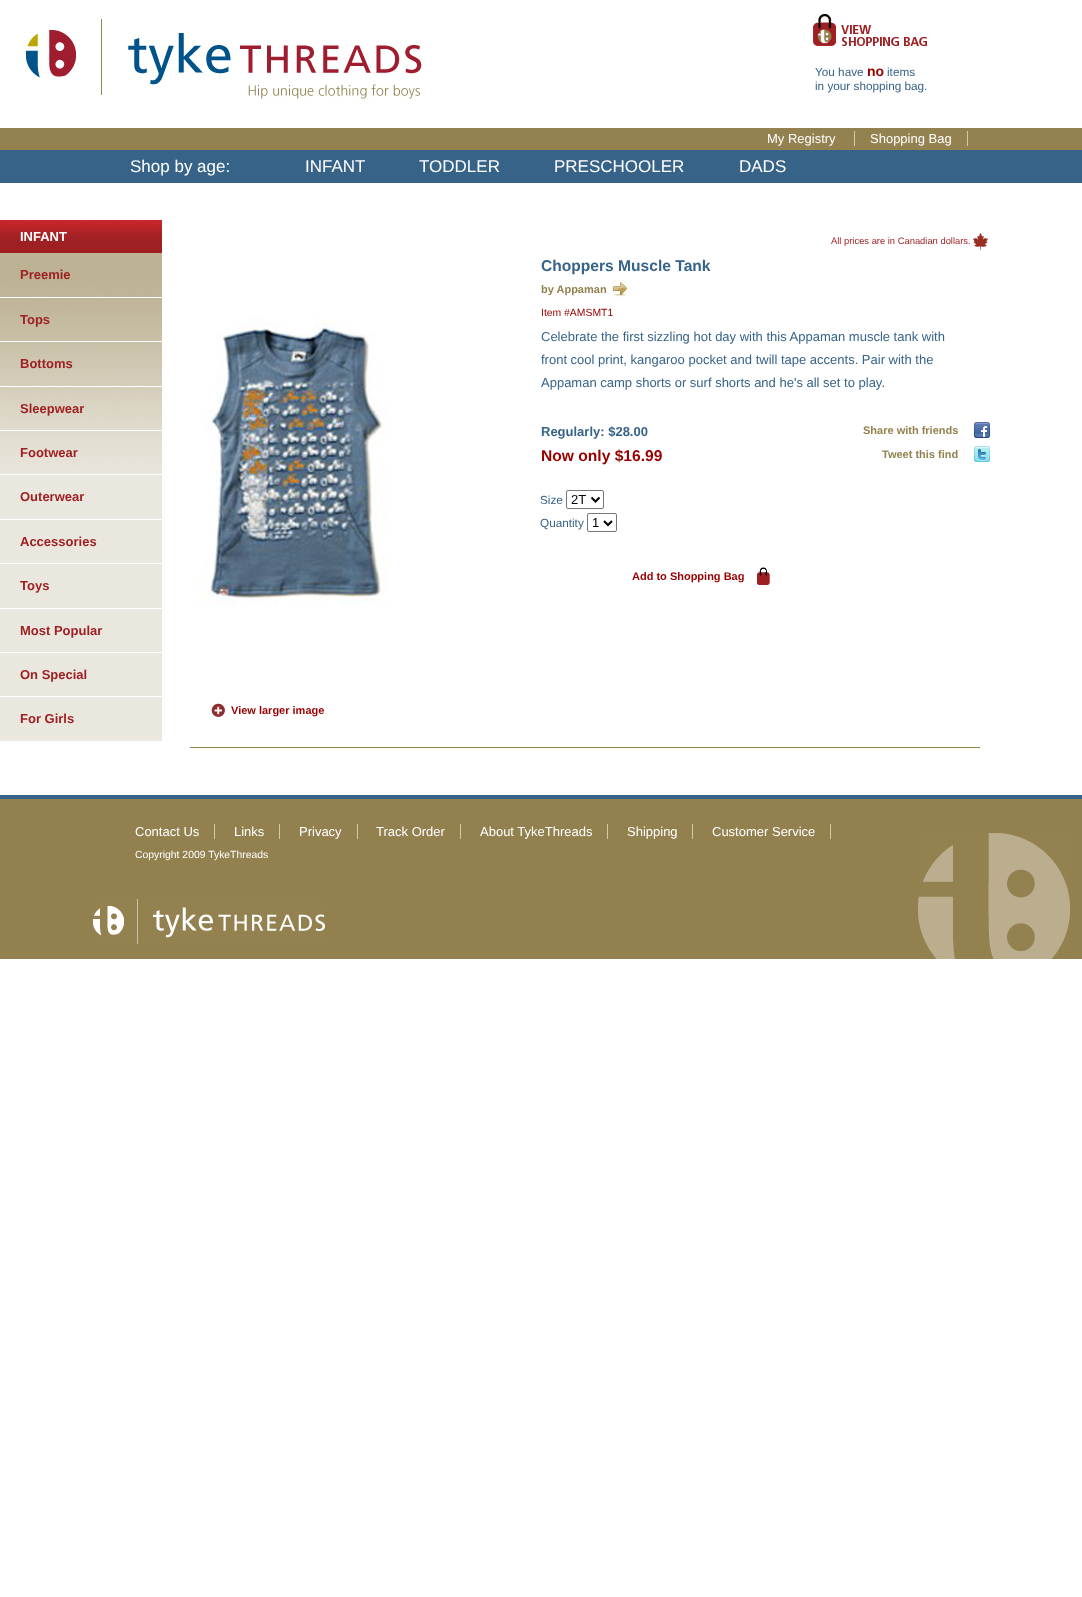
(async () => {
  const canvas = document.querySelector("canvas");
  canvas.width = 1082;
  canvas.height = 1597;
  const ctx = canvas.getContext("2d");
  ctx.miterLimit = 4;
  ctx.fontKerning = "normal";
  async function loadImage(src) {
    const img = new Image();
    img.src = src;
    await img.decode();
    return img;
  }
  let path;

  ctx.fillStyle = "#ffffff";
  ctx.fillRect(0, 0, 1082, 1597);
  ctx.fillStyle = "#93814f";
  ctx.fillRect(0, 128, 1082, 22);
  ctx.drawImage(await loadImage("img/1.png"), 26, 19, 396, 83);
  ctx.drawImage(await loadImage("img/2.png"), 813, 14, 114, 32);
  for (const [x, y, w, h, color] of [
    [854, 131, 1, 15, "#d4c9a9"],
    [967, 131, 1, 15, "#d4c9a9"],
    [0, 150, 1082, 33, "#376388"],
  ]) {
    ctx.fillStyle = color;
    ctx.fillRect(x, y, w, h);
  }
  ctx.drawImage(await loadImage("img/3.png"), 0, 220, 162, 33);
  ctx.fillStyle = "#eae7de";
  ctx.fillRect(0, 473, 162, 268);
  ctx.drawImage(await loadImage("img/4.png"), 0, 253, 162, 220);
  for (const [x, y, w, h, color] of [
    [0, 297, 170, 1, "#ffffff"],
    [0, 341, 170, 1, "#ffffff"],
    [0, 386, 170, 1, "#ffffff"],
    [0, 430, 170, 1, "#ffffff"],
    [0, 474, 170, 1, "#ffffff"],
    [0, 519, 170, 1, "#ffffff"],
    [0, 563, 170, 1, "#ffffff"],
    [0, 608, 170, 1, "#ffffff"],
    [0, 652, 170, 1, "#ffffff"],
    [0, 696, 170, 1, "#ffffff"],
  ]) {
    ctx.fillStyle = color;
    ctx.fillRect(x, y, w, h);
  }
  ctx.drawImage(await loadImage("img/5.png"), 973, 233, 15, 18);
  ctx.drawImage(await loadImage("img/6.png"), 610, 279, 22, 20);
  ctx.beginPath();
  ctx.roundRect(566.5, 490.5, 37, 18, 1.5);
  ctx.strokeStyle = "#767676";
  ctx.stroke();
  path = new Path2D("M591.5 497.5L595.5 501.5L599.5 497.5");
  ctx.strokeStyle = "#000000";
  ctx.lineWidth = 2;
  ctx.stroke(path);
  ctx.beginPath();
  ctx.roundRect(587.5, 513.5, 29, 18, 1.5);
  ctx.strokeStyle = "#767676";
  ctx.lineWidth = 1;
  ctx.stroke();
  path = new Path2D("M604 521L608 525L612 521");
  ctx.strokeStyle = "#000000";
  ctx.lineWidth = 2;
  ctx.stroke(path);
  ctx.drawImage(await loadImage("img/7.png"), 757, 567, 13, 18);
  ctx.drawImage(await loadImage("img/8.png"), 974, 422, 16, 16);
  ctx.drawImage(await loadImage("img/9.png"), 974, 446, 16, 16);
  ctx.drawImage(await loadImage("img/10.png"), 191, 317, 198, 290);
  ctx.drawImage(await loadImage("img/11.png"), 211, 703, 15, 15);
  ctx.fillStyle = "#93814f";
  ctx.fillRect(190, 747, 790, 1);
  ctx.fillStyle = "#92804e";
  ctx.fillRect(0, 799, 1082, 160);
  ctx.drawImage(await loadImage("img/12.png"), 918, 833, 152, 126);
  for (const [x, y, w, h, color] of [
    [0, 795, 1082, 4, "#376388"],
    [214, 824, 1, 15, "#d4c9a9"],
    [279, 824, 1, 15, "#d4c9a9"],
    [357, 824, 1, 15, "#d4c9a9"],
    [460, 824, 1, 15, "#d4c9a9"],
    [607, 824, 1, 15, "#d4c9a9"],
    [692, 824, 1, 15, "#d4c9a9"],
    [830, 824, 1, 15, "#d4c9a9"],
  ]) {
    ctx.fillStyle = color;
    ctx.fillRect(x, y, w, h);
  }
  ctx.drawImage(await loadImage("img/13.png"), 93, 899, 232, 45);
  ctx.font = "11.75px Liberation Sans";
  ctx.fillStyle = "#376388";
  ctx.fillText("You have", 815, 76);
  ctx.font = "bold 14px Liberation Sans";
  ctx.fillStyle = "#990000";
  ctx.fillText("no", 867, 76);
  ctx.font = "11.75px Liberation Sans";
  ctx.fillStyle = "#376388";
  ctx.fillText("items", 887, 76);
  ctx.fillText("in your shopping bag.", 815, 90);
  ctx.font = "13px Liberation Sans";
  ctx.fillStyle = "#ffffff";
  ctx.fillText("My Registry", 767, 143);
  ctx.fillText("Shopping Bag", 870, 143);
  ctx.font = "17px Liberation Sans";
  for (const [text, x, y] of [
    ["Shop by age:", 130, 172],
    ["INFANT", 305, 172],
    ["TODDLER", 419, 172],
    ["PRESCHOOLER", 554, 172],
    ["DADS", 739, 172],
  ]) {
    ctx.fillText(text, x, y);
  }
  ctx.font = "bold 13px Liberation Sans";
  ctx.fillText("INFANT", 20, 241);
  ctx.fillStyle = "#9e2023";
  for (const [text, x, y] of [
    ["Preemie", 20, 279],
    ["Tops", 20, 324],
    ["Bottoms", 20, 368],
    ["Sleepwear", 20, 413],
    ["Footwear", 20, 457],
    ["Outerwear", 20, 501],
    ["Accessories", 20, 546],
    ["Toys", 20, 590],
    ["Most Popular", 20, 635],
    ["On Special", 20, 679],
    ["For Girls", 20, 723],
  ]) {
    ctx.fillText(text, x, y);
  }
  ctx.font = "9.4px Liberation Sans";
  ctx.fillText("All prices are in Canadian dollars.", 831, 244);
  ctx.font = "bold 15.6px Liberation Sans";
  ctx.fillStyle = "#376388";
  ctx.fillText("Choppers Muscle Tank", 541, 271);
  ctx.font = "bold 11px Liberation Sans";
  ctx.fillStyle = "#93814f";
  ctx.fillText("by Appaman", 541, 293);
  ctx.font = "10.4px Liberation Sans";
  ctx.fillStyle = "#990000";
  ctx.fillText("Item #AMSMT1", 541, 316);
  ctx.font = "13px Liberation Sans";
  ctx.fillStyle = "#376388";
  for (const [text, x, y] of [
    ["Celebrate the first sizzling hot day with this Appaman muscle tank with", 541, 341],
    ["front cool print, kangaroo pocket and twill tape accents. Pair with the", 541, 364],
    ["Appaman camp shorts or surf shorts and he's all set to play.", 541, 387],
  ]) {
    ctx.fillText(text, x, y);
  }
  ctx.font = "bold 13px Liberation Sans";
  ctx.fillText("Regularly: $28.00", 541, 436);
  ctx.font = "bold 15.6px Liberation Sans";
  ctx.fillStyle = "#990000";
  ctx.fillText("Now only $16.99", 541, 461);
  ctx.font = "11.75px Liberation Sans";
  ctx.fillStyle = "#376388";
  ctx.fillText("Size", 540, 504);
  ctx.font = "13px Liberation Sans";
  ctx.fillStyle = "#000000";
  ctx.fillText("2T", 571, 504);
  ctx.font = "11.75px Liberation Sans";
  ctx.fillStyle = "#376388";
  ctx.fillText("Quantity", 540, 527);
  ctx.font = "13px Liberation Sans";
  ctx.fillStyle = "#000000";
  ctx.fillText("1", 592, 527);
  ctx.font = "bold 11px Liberation Sans";
  ctx.fillStyle = "#990000";
  ctx.fillText("Add to Shopping Bag", 632, 580);
  ctx.fillStyle = "#93814f";
  ctx.fillText("Share with friends", 863, 434);
  ctx.fillText("Tweet this find", 882, 458);
  ctx.fillStyle = "#990000";
  ctx.fillText("View larger image", 231, 714);
  ctx.font = "13px Liberation Sans";
  ctx.fillStyle = "#ffffff";
  for (const [text, x, y] of [
    ["Contact Us", 135, 836],
    ["Links", 234, 836],
    ["Privacy", 299, 836],
    ["Track Order", 376, 836],
    ["About TykeThreads", 480, 836],
    ["Shipping", 627, 836],
    ["Customer Service", 712, 836],
  ]) {
    ctx.fillText(text, x, y);
  }
  ctx.font = "10.4px Liberation Sans";
  ctx.fillText("Copyright 2009 TykeThreads", 135, 858);
})();
